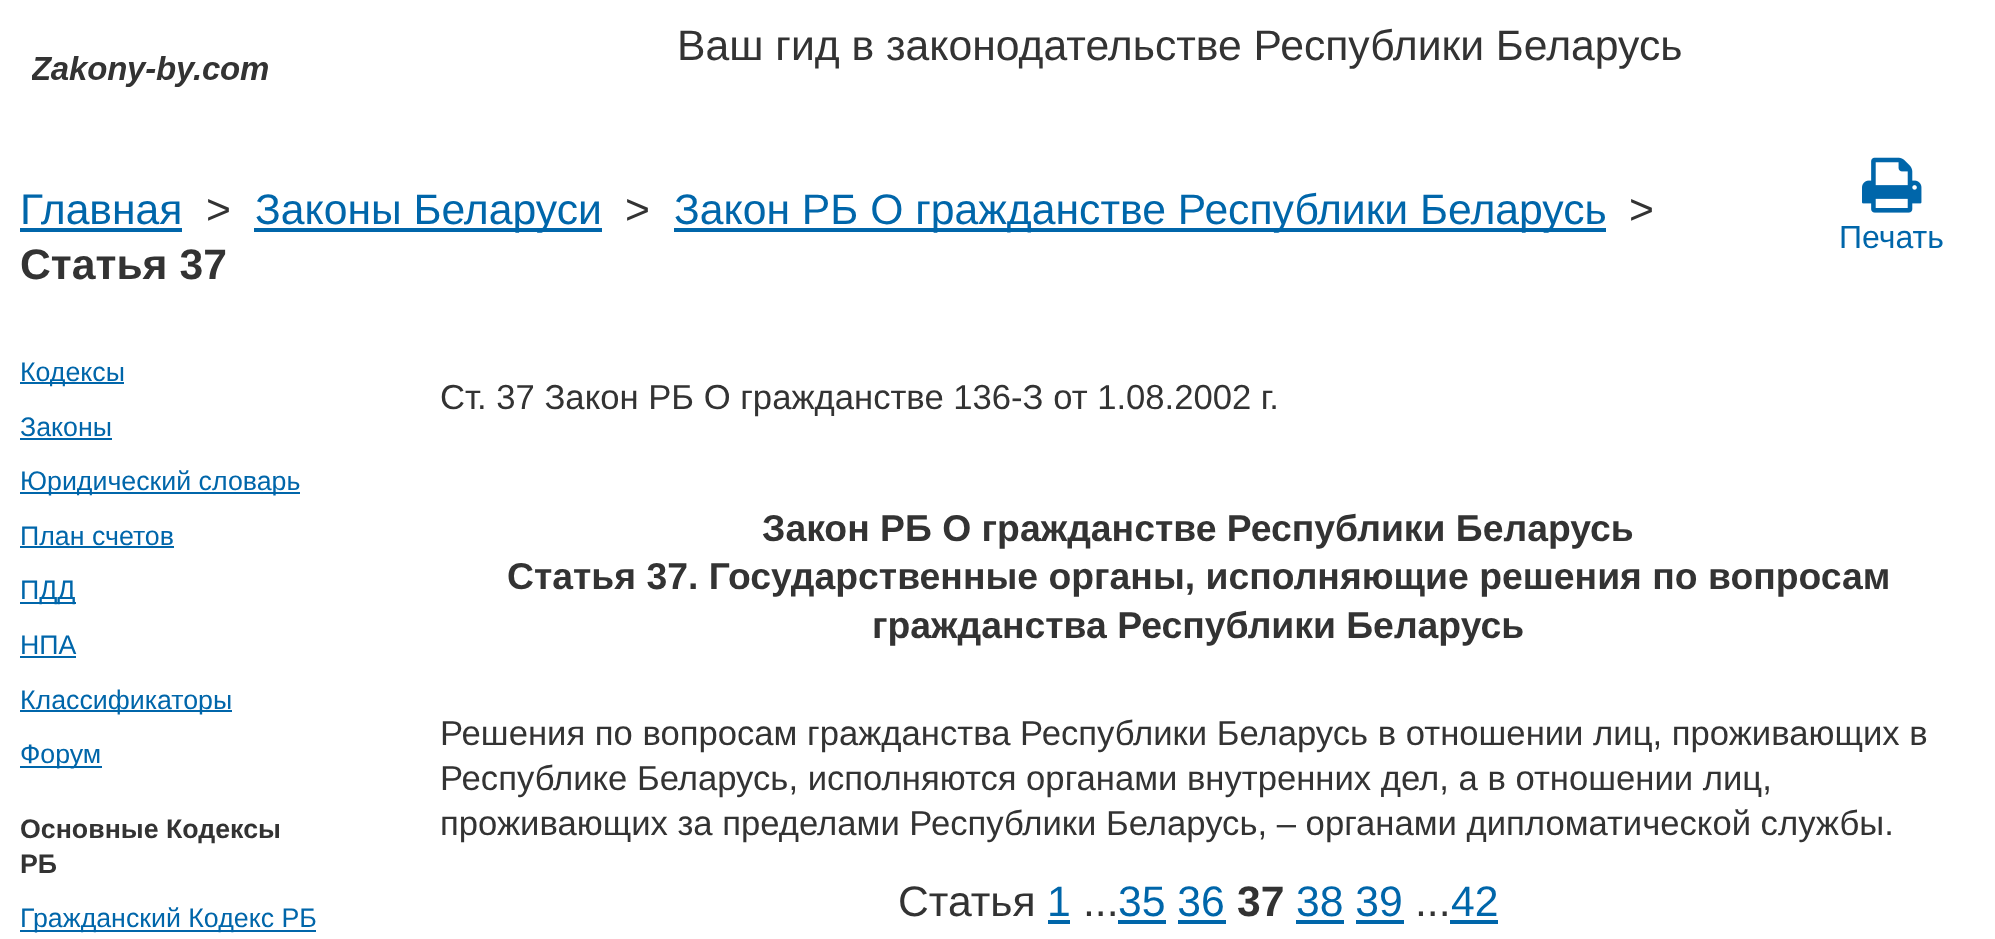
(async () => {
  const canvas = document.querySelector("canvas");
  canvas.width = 1995;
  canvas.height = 939;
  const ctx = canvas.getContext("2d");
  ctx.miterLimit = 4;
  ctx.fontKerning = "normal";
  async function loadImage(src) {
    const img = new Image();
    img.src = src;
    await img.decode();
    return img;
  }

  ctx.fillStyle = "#ffffff";
  ctx.fillRect(0, 0, 1995, 939);
  ctx.drawImage(await loadImage("img/1.png"), 32, 56, 236, 31);
  for (const [x, y, w, h, color] of [
    [20, 228, 162, 4, "#0066aa"],
    [254, 228, 348, 4, "#0066aa"],
    [674, 228, 932, 4, "#0066aa"],
  ]) {
    ctx.fillStyle = color;
    ctx.fillRect(x, y, w, h);
  }
  ctx.drawImage(await loadImage("img/2.png"), 1862, 157, 60, 56);
  for (const [x, y, w, h, color] of [
    [20, 382, 104, 2, "#0066aa"],
    [20, 438, 92, 2, "#0066aa"],
    [20, 492, 280, 2, "#0066aa"],
    [20, 546, 154, 2, "#0066aa"],
    [20, 602, 56, 2, "#0066aa"],
    [20, 656, 56, 2, "#0066aa"],
    [20, 710, 212, 2, "#0066aa"],
    [20, 766, 82, 2, "#0066aa"],
    [20, 930, 296, 2, "#0066aa"],
    [1048, 920, 22, 4, "#0066aa"],
    [1118, 920, 48, 4, "#0066aa"],
    [1296, 920, 48, 4, "#0066aa"],
    [1450, 920, 48, 4, "#0066aa"],
    [1178, 920, 48, 4, "#0066aa"],
    [1356, 920, 48, 4, "#0066aa"],
  ]) {
    ctx.fillStyle = color;
    ctx.fillRect(x, y, w, h);
  }
  ctx.font = "42.7px Liberation Sans";
  ctx.fillStyle = "#333333";
  ctx.fillText("Ваш гид в законодательстве Республики Беларусь", 677, 60);
  ctx.fillStyle = "#0066aa";
  ctx.fillText("Главная", 20, 224);
  ctx.fillStyle = "#333333";
  ctx.fillText(">", 206, 224);
  ctx.fillStyle = "#0066aa";
  ctx.fillText("Законы Беларуси", 255, 224);
  ctx.fillStyle = "#333333";
  ctx.fillText(">", 625, 224);
  ctx.fillStyle = "#0066aa";
  ctx.fillText("Закон РБ О гражданстве Республики Беларусь", 674, 224);
  ctx.fillStyle = "#333333";
  ctx.fillText(">", 1629, 224);
  ctx.font = "bold 42.7px Liberation Sans";
  ctx.fillText("Статья 37", 20, 279);
  ctx.font = "32px Liberation Sans";
  ctx.fillStyle = "#0066aa";
  ctx.fillText("Печать", 1839, 248);
  ctx.font = "26.75px Liberation Sans";
  for (const [text, x, y] of [
    ["Кодексы", 20, 381],
    ["Законы", 20, 436],
    ["Юридический словарь", 20, 490],
    ["План счетов", 20, 545],
    ["ПДД", 20, 599],
    ["НПА", 20, 654],
    ["Классификаторы", 20, 709],
    ["Форум", 20, 763],
  ]) {
    ctx.fillText(text, x, y);
  }
  ctx.font = "bold 26.75px Liberation Sans";
  ctx.fillStyle = "#333333";
  ctx.fillText("Основные Кодексы", 20, 838);
  ctx.fillText("РБ", 20, 873);
  ctx.font = "26.75px Liberation Sans";
  ctx.fillStyle = "#0066aa";
  ctx.fillText("Гражданский Кодекс РБ", 20, 927);
  ctx.font = "34.65px Liberation Sans";
  ctx.fillStyle = "#333333";
  ctx.fillText("Ст. 37 Закон РБ О гражданстве 136-З от 1.08.2002 г.", 440, 409);
  ctx.font = "bold 37.35px Liberation Sans";
  for (const [text, x, y] of [
    ["Закон РБ О гражданстве Республики Беларусь", 762, 541],
    ["Статья 37. Государственные органы, исполняющие решения по вопросам", 507, 589],
    ["гражданства Республики Беларусь", 872, 638],
  ]) {
    ctx.fillText(text, x, y);
  }
  ctx.font = "34.65px Liberation Sans";
  for (const [text, x, y] of [
    ["Решения по вопросам гражданства Республики Беларусь в отношении лиц, проживающих в", 440, 745],
    ["Республике Беларусь, исполняются органами внутренних дел, а в отношении лиц,", 440, 790],
    ["проживающих за пределами Республики Беларусь, – органами дипломатической службы.", 440, 835],
  ]) {
    ctx.fillText(text, x, y);
  }
  ctx.font = "42.7px Liberation Sans";
  ctx.fillText("Статья", 898, 916);
  ctx.fillStyle = "#0066aa";
  ctx.fillText("1", 1047, 916);
  ctx.fillStyle = "#333333";
  ctx.fillText("...", 1083, 916);
  ctx.fillStyle = "#0066aa";
  ctx.fillText("35 36", 1118, 916);
  ctx.font = "bold 42.7px Liberation Sans";
  ctx.fillStyle = "#333333";
  ctx.fillText("37", 1237, 916);
  ctx.font = "42.7px Liberation Sans";
  ctx.fillStyle = "#0066aa";
  ctx.fillText("38 39", 1296, 916);
  ctx.fillStyle = "#333333";
  ctx.fillText("...", 1415, 916);
  ctx.fillStyle = "#0066aa";
  ctx.fillText("42", 1451, 916);
})();
